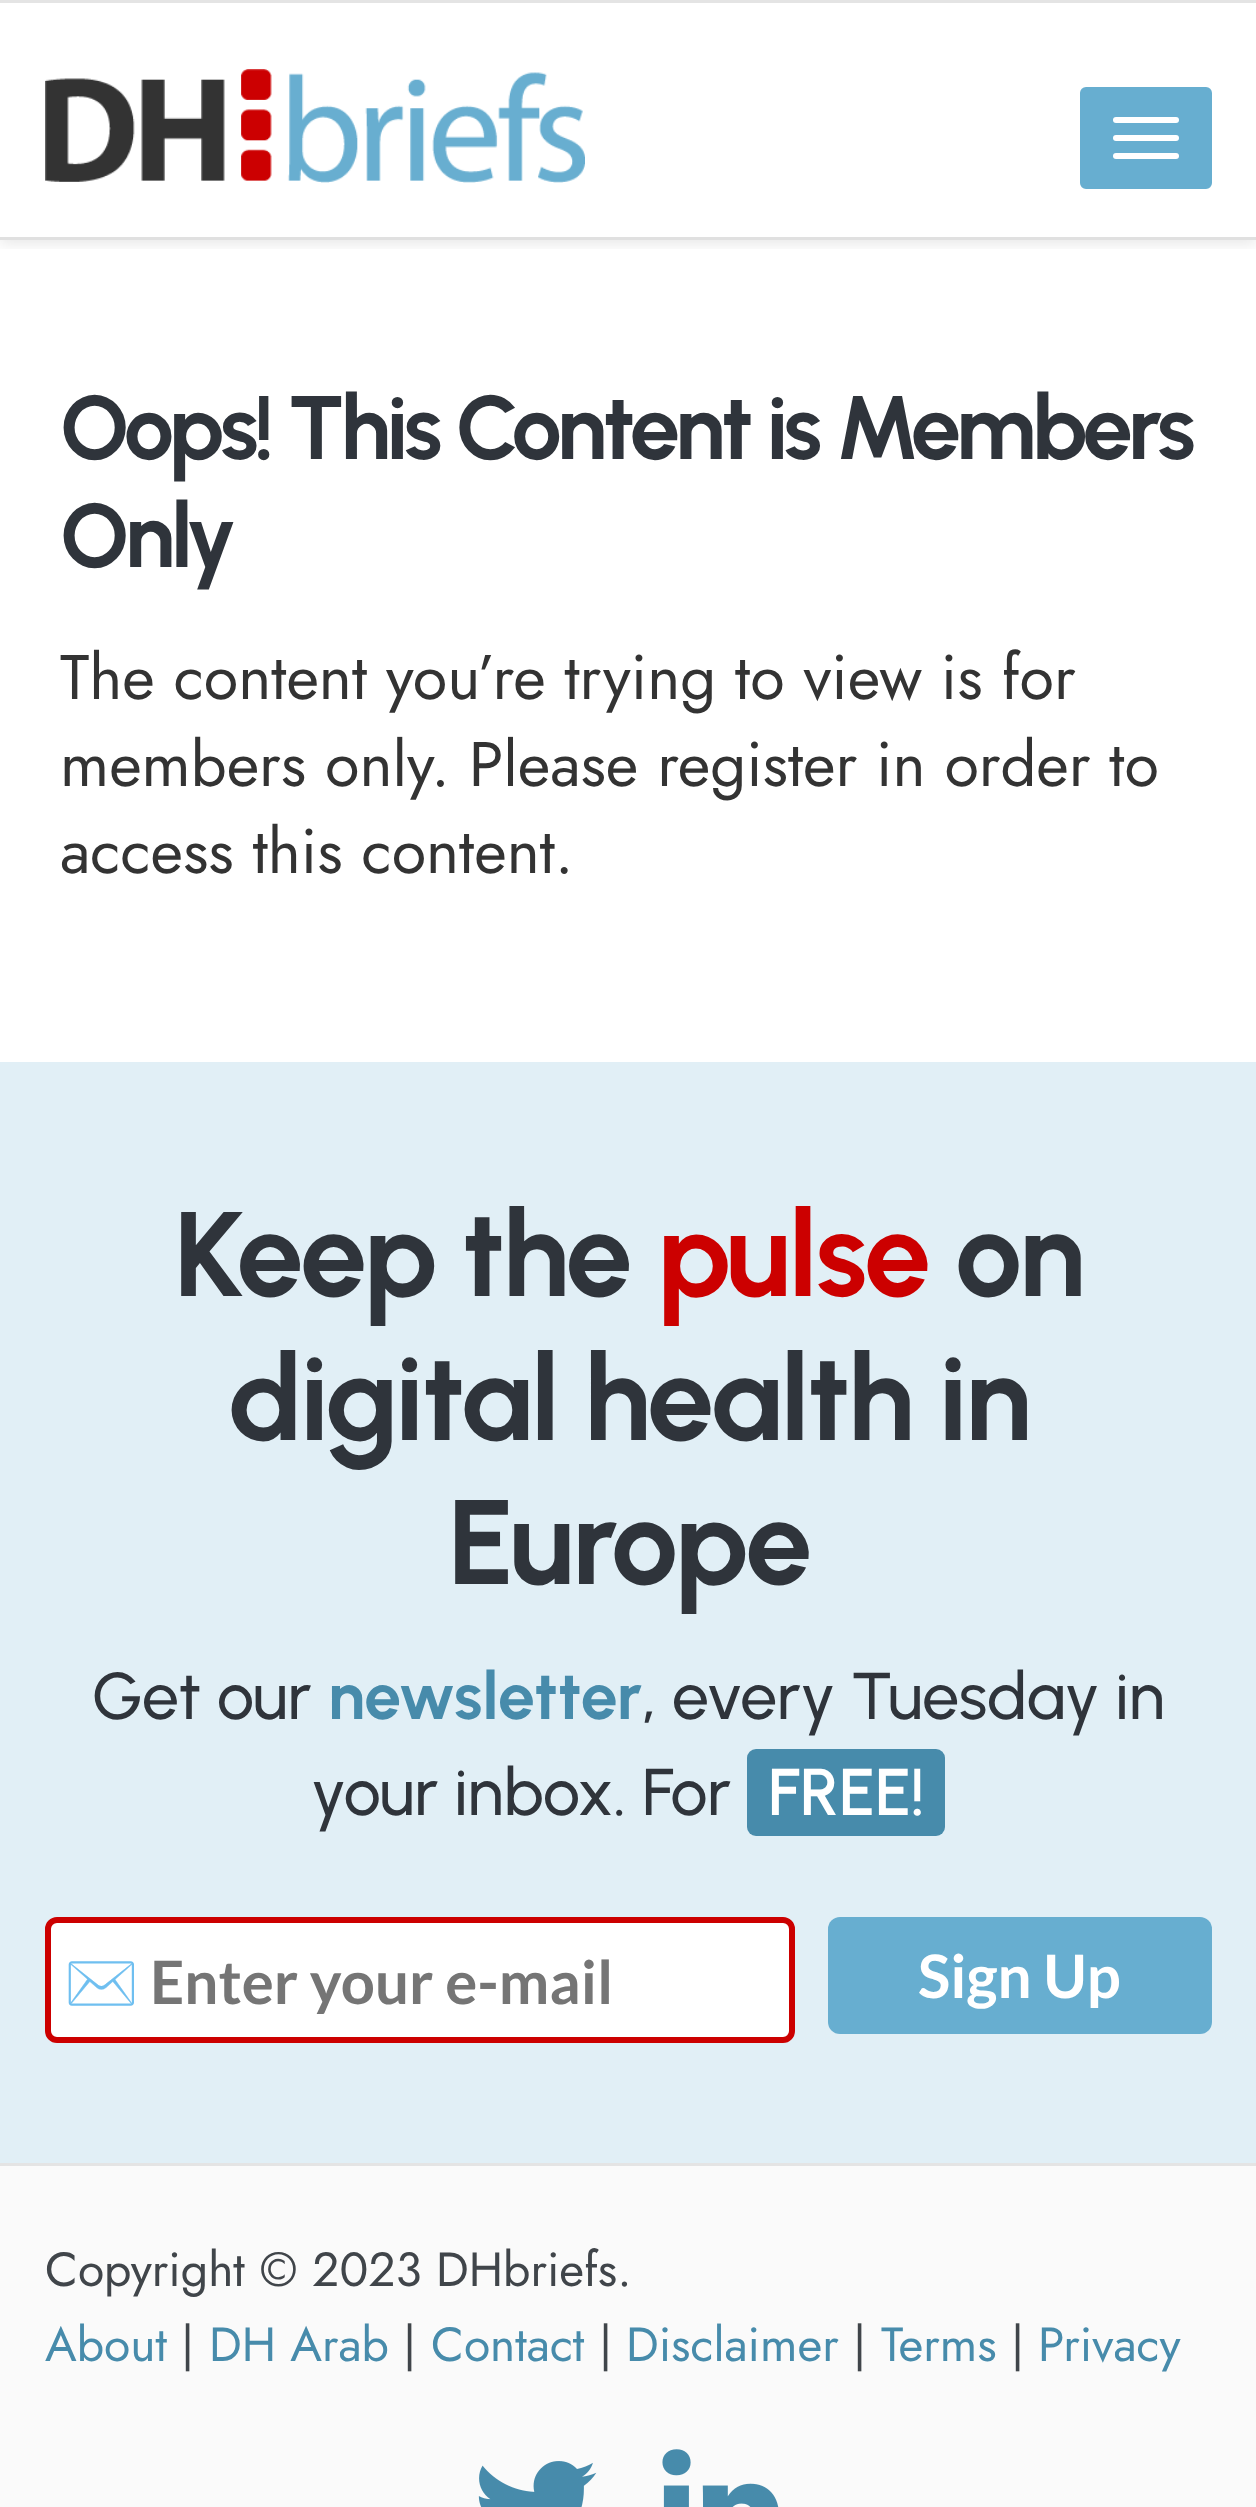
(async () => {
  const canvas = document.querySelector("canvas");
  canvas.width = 1256;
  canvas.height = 2507;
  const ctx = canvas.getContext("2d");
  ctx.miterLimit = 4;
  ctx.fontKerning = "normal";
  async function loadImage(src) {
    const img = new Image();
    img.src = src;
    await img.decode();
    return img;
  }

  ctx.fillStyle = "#ffffff";
  ctx.fillRect(0, 0, 1256, 2507);
  ctx.save();
  ctx.beginPath();
  ctx.rect(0, 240, 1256, 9);
  ctx.clip();
  ctx.fillStyle = "rgba(0, 0, 0, 0.1)";
  ctx.filter = "blur(7.5px)";
  ctx.beginPath();
  ctx.rect(0, 3, 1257, 240);
  ctx.fill();
  ctx.filter = "none";
  ctx.restore();
  ctx.fillStyle = "#e4e4e4";
  ctx.fillRect(0, 0, 1256, 3);
  ctx.fillStyle = "#e0e0e0";
  ctx.fillRect(0, 237, 1256, 3);
  ctx.drawImage(await loadImage("img/1.png"), 45, 69, 540, 114);
  ctx.fillStyle = "#67aed0";
  ctx.beginPath();
  ctx.roundRect(1081.5, 88.5, 129, 99, 4.5);
  ctx.fill();
  ctx.strokeStyle = "#67aed0";
  ctx.lineWidth = 3;
  ctx.stroke();
  ctx.fillStyle = "#ffffff";
  ctx.beginPath();
  ctx.roundRect(1113, 117, 66, 6, 3);
  ctx.fill();
  ctx.beginPath();
  ctx.roundRect(1113, 135, 66, 6, 3);
  ctx.fill();
  ctx.beginPath();
  ctx.roundRect(1113, 153, 66, 6, 3);
  ctx.fill();
  ctx.fillStyle = "#e1eff6";
  ctx.fillRect(0, 1062, 1256, 1101);
  ctx.fillStyle = "#478bab";
  ctx.beginPath();
  ctx.roundRect(747, 1749, 198, 87, 9);
  ctx.fill();
  ctx.fillStyle = "#ffffff";
  ctx.beginPath();
  ctx.roundRect(48, 1920, 744, 120, 9);
  ctx.fill();
  ctx.strokeStyle = "#cc0000";
  ctx.lineWidth = 6;
  ctx.stroke();
  ctx.fillStyle = "#67aed0";
  ctx.beginPath();
  ctx.roundRect(828, 1917, 384, 117, 12);
  ctx.fill();
  ctx.fillStyle = "#fafafa";
  ctx.fillRect(0, 2166, 1256, 341);
  ctx.fillStyle = "#e4e4e4";
  ctx.fillRect(0, 2163, 1256, 3);
  ctx.drawImage(await loadImage("img/2.png"), 478, 2461, 119, 46);
  ctx.drawImage(await loadImage("img/3.png"), 662, 2449, 117, 58);
  ctx.letterSpacing = "-4.2px";
  ctx.font = "bold 90px Urbanist";
  ctx.fillStyle = "#2f343b";
  ctx.fillText("Oops! This Content is Members", 60, 459);
  ctx.fillText("Only", 60, 567);
  ctx.letterSpacing = "0px";
  ctx.font = "63px Jost";
  ctx.fillStyle = "#333333";
  for (const [text, x, y] of [
    ["The content you’re trying to view is for", 60, 699],
    ["members only. Please register in order to", 60, 786],
    ["access this content.", 60, 873],
  ]) {
    ctx.fillText(text, x, y);
  }
  ctx.letterSpacing = "-2.4px";
  ctx.font = "bold 120px Urbanist";
  ctx.fillStyle = "#2f343b";
  ctx.fillText("Keep the", 174, 1296);
  ctx.fillStyle = "#cc0000";
  ctx.fillText("pulse", 657, 1296);
  ctx.fillStyle = "#2f343b";
  for (const [text, x, y] of [
    ["on", 955, 1296],
    ["digital health in", 228, 1440],
    ["Europe", 448, 1584],
  ]) {
    ctx.fillText(text, x, y);
  }
  ctx.letterSpacing = "0px";
  ctx.font = "500 66px Urbanist";
  ctx.fillText("Get our", 92, 1719);
  ctx.font = "bold 66px Urbanist";
  ctx.fillStyle = "#478bab";
  ctx.fillText("newsletter", 328, 1719);
  ctx.font = "500 66px Urbanist";
  ctx.fillStyle = "#2f343b";
  ctx.fillText(", every Tuesday in", 642, 1719);
  ctx.fillText("your inbox. For", 311, 1815);
  ctx.font = "600 66px Urbanist";
  ctx.fillStyle = "#ffffff";
  ctx.fillText("FREE!", 768, 1815);
  ctx.font = "60px Noto Color Emoji";
  ctx.fillStyle = "#757575";
  ctx.fillText("✉️", 64, 2004);
  ctx.font = "bold 60px Lato";
  ctx.fillText("Enter your e-mail", 150, 2004);
  ctx.fillStyle = "#ffffff";
  ctx.fillText("Sign Up", 918, 1998);
  ctx.font = "48px Jost";
  ctx.fillStyle = "#40454a";
  ctx.fillText("Copyright © 2023 DHbriefs.", 45, 2286);
  ctx.fillStyle = "#478bab";
  ctx.fillText("About", 45, 2361);
  ctx.fillStyle = "#40454a";
  ctx.fillText("|", 181, 2361);
  ctx.fillStyle = "#478bab";
  ctx.fillText("DH Arab", 209, 2361);
  ctx.fillStyle = "#40454a";
  ctx.fillText("|", 403, 2361);
  ctx.fillStyle = "#478bab";
  ctx.fillText("Contact", 431, 2361);
  ctx.fillStyle = "#40454a";
  ctx.fillText("|", 599, 2361);
  ctx.fillStyle = "#478bab";
  ctx.fillText("Disclaimer", 626, 2361);
  ctx.fillStyle = "#40454a";
  ctx.fillText("|", 853, 2361);
  ctx.fillStyle = "#478bab";
  ctx.fillText("Terms", 881, 2361);
  ctx.fillStyle = "#40454a";
  ctx.fillText("|", 1011, 2361);
  ctx.fillStyle = "#478bab";
  ctx.fillText("Privacy", 1038, 2361);
})();
